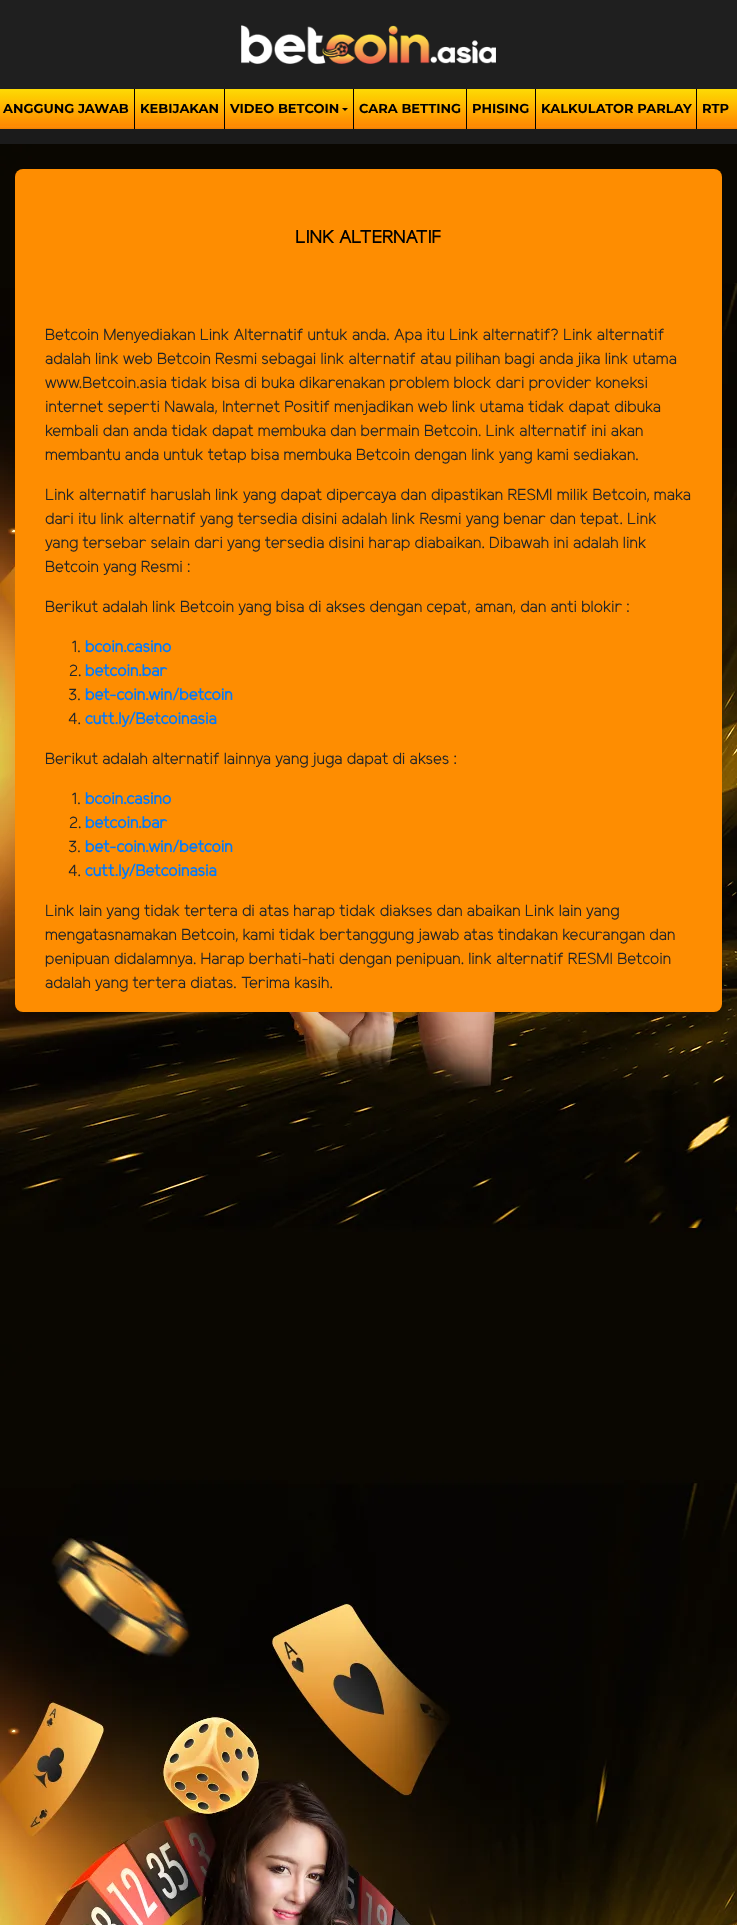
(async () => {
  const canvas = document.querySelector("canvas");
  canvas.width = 737;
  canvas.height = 1925;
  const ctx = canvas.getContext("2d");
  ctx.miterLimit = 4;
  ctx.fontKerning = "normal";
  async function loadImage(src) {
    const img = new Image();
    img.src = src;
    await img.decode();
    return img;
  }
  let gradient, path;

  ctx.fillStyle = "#1b1b1b";
  ctx.fillRect(0, 0, 737, 1925);
  ctx.fillStyle = "#1f1f1f";
  ctx.fillRect(0, 0, 737, 89);
  ctx.drawImage(await loadImage("img/1.png"), 241, 25, 255, 39);
  gradient = ctx.createLinearGradient(369, 89, 369, 129);
  gradient.addColorStop(0, "#fdda06");
  gradient.addColorStop(0.21, "#fdca00");
  gradient.addColorStop(0.24, "#ffc702");
  gradient.addColorStop(0.76, "#ff9700");
  gradient.addColorStop(0.85, "#ff9003");
  gradient.addColorStop(0.88, "#ff8d00");
  gradient.addColorStop(0.91, "#ff8b00");
  gradient.addColorStop(0.94, "#fd8d07");
  gradient.addColorStop(0.97, "#f88703");
  gradient.addColorStop(1, "#ef7e00");
  ctx.fillStyle = gradient;
  ctx.fillRect(0, 89, 737, 40);
  for (const [x, y, w, h, color] of [
    [134, 89, 1, 40, "#000000"],
    [224, 89, 1, 40, "#000000"],
    [353, 89, 1, 40, "#000000"],
  ]) {
    ctx.fillStyle = color;
    ctx.fillRect(x, y, w, h);
  }
  path = new Path2D("M342 108H348L345 111Z");
  ctx.fill(path);
  for (const [x, y, w, h, color] of [
    [466, 89, 1, 40, "#000000"],
    [535, 89, 1, 40, "#000000"],
    [696, 89, 1, 40, "#000000"],
  ]) {
    ctx.fillStyle = color;
    ctx.fillRect(x, y, w, h);
  }
  ctx.drawImage(await loadImage("img/2.png"), 0, 144, 737, 1781);
  ctx.fillStyle = "#fe8d01";
  ctx.beginPath();
  ctx.roundRect(15, 169, 707, 843, 8);
  ctx.fill();
  ctx.font = "bold 13px Montserrat";
  ctx.fillStyle = "#000000";
  for (const [text, x, y] of [
    ["ANGGUNG JAWAB", 3, 113],
    ["KEBIJAKAN", 140, 113],
    ["VIDEO BETCOIN", 230, 113],
    ["CARA BETTING", 359, 113],
    ["PHISING", 472, 113],
    ["KALKULATOR PARLAY", 541, 113],
    ["RTP", 702, 113],
  ]) {
    ctx.fillText(text, x, y);
  }
  ctx.font = "bold 18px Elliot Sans";
  ctx.fillText("LINK ALTERNATIF", 295, 243);
  ctx.font = "16px Elliot Sans";
  ctx.fillStyle = "#212529";
  for (const [text, x, y] of [
    ["Betcoin Menyediakan Link Alternatif untuk anda. Apa itu Link alternatif? Link alternatif", 45, 340],
    ["adalah link web Betcoin Resmi sebagai link alternatif atau pilihan bagi anda jika link utama", 45, 364],
    ["www.Betcoin.asia tidak bisa di buka dikarenakan problem block dari provider koneksi", 45, 388],
    ["internet seperti Nawala, Internet Positif menjadikan web link utama tidak dapat dibuka", 45, 412],
    ["kembali dan anda tidak dapat membuka dan bermain Betcoin. Link alternatif ini akan", 45, 436],
    ["membantu anda untuk tetap bisa membuka Betcoin dengan link yang kami sediakan.", 45, 460],
    ["Link alternatif haruslah link yang dapat dipercaya dan dipastikan RESMI milik Betcoin, maka", 45, 500],
    ["dari itu link alternatif yang tersedia disini adalah link Resmi yang benar dan tepat. Link", 45, 524],
    ["yang tersebar selain dari yang tersedia disini harap diabaikan. Dibawah ini adalah link", 45, 548],
    ["Betcoin yang Resmi :", 45, 572],
    ["Berikut adalah link Betcoin yang bisa di akses dengan cepat, aman, dan anti blokir :", 45, 612],
    ["1.", 71, 652],
  ]) {
    ctx.fillText(text, x, y);
  }
  ctx.font = "bold 16px Elliot Sans";
  ctx.fillStyle = "#007bff";
  ctx.fillText("bcoin.casino", 85, 652);
  ctx.font = "16px Elliot Sans";
  ctx.fillStyle = "#212529";
  ctx.fillText("2.", 69, 676);
  ctx.font = "bold 16px Elliot Sans";
  ctx.fillStyle = "#007bff";
  ctx.fillText("betcoin.bar", 85, 676);
  ctx.font = "16px Elliot Sans";
  ctx.fillStyle = "#212529";
  ctx.fillText("3.", 68, 700);
  ctx.font = "bold 16px Elliot Sans";
  ctx.fillStyle = "#007bff";
  ctx.fillText("bet-coin.win/betcoin", 85, 700);
  ctx.font = "16px Elliot Sans";
  ctx.fillStyle = "#212529";
  ctx.fillText("4.", 68, 724);
  ctx.font = "bold 16px Elliot Sans";
  ctx.fillStyle = "#007bff";
  ctx.fillText("cutt.ly/Betcoinasia", 85, 724);
  ctx.font = "16px Elliot Sans";
  ctx.fillStyle = "#212529";
  ctx.fillText("Berikut adalah alternatif lainnya yang juga dapat di akses :", 45, 764);
  ctx.fillText("1.", 71, 804);
  ctx.font = "bold 16px Elliot Sans";
  ctx.fillStyle = "#007bff";
  ctx.fillText("bcoin.casino", 85, 804);
  ctx.font = "16px Elliot Sans";
  ctx.fillStyle = "#212529";
  ctx.fillText("2.", 69, 828);
  ctx.font = "bold 16px Elliot Sans";
  ctx.fillStyle = "#007bff";
  ctx.fillText("betcoin.bar", 85, 828);
  ctx.font = "16px Elliot Sans";
  ctx.fillStyle = "#212529";
  ctx.fillText("3.", 68, 852);
  ctx.font = "bold 16px Elliot Sans";
  ctx.fillStyle = "#007bff";
  ctx.fillText("bet-coin.win/betcoin", 85, 852);
  ctx.font = "16px Elliot Sans";
  ctx.fillStyle = "#212529";
  ctx.fillText("4.", 68, 876);
  ctx.font = "bold 16px Elliot Sans";
  ctx.fillStyle = "#007bff";
  ctx.fillText("cutt.ly/Betcoinasia", 85, 876);
  ctx.font = "16px Elliot Sans";
  ctx.fillStyle = "#212529";
  for (const [text, x, y] of [
    ["Link lain yang tidak tertera di atas harap tidak diakses dan abaikan Link lain yang", 45, 916],
    ["mengatasnamakan Betcoin, kami tidak bertanggung jawab atas tindakan kecurangan dan", 45, 940],
    ["penipuan didalamnya. Harap berhati-hati dengan penipuan. link alternatif RESMI Betcoin", 45, 964],
    ["adalah yang tertera diatas. Terima kasih.", 45, 988],
  ]) {
    ctx.fillText(text, x, y);
  }
})();
